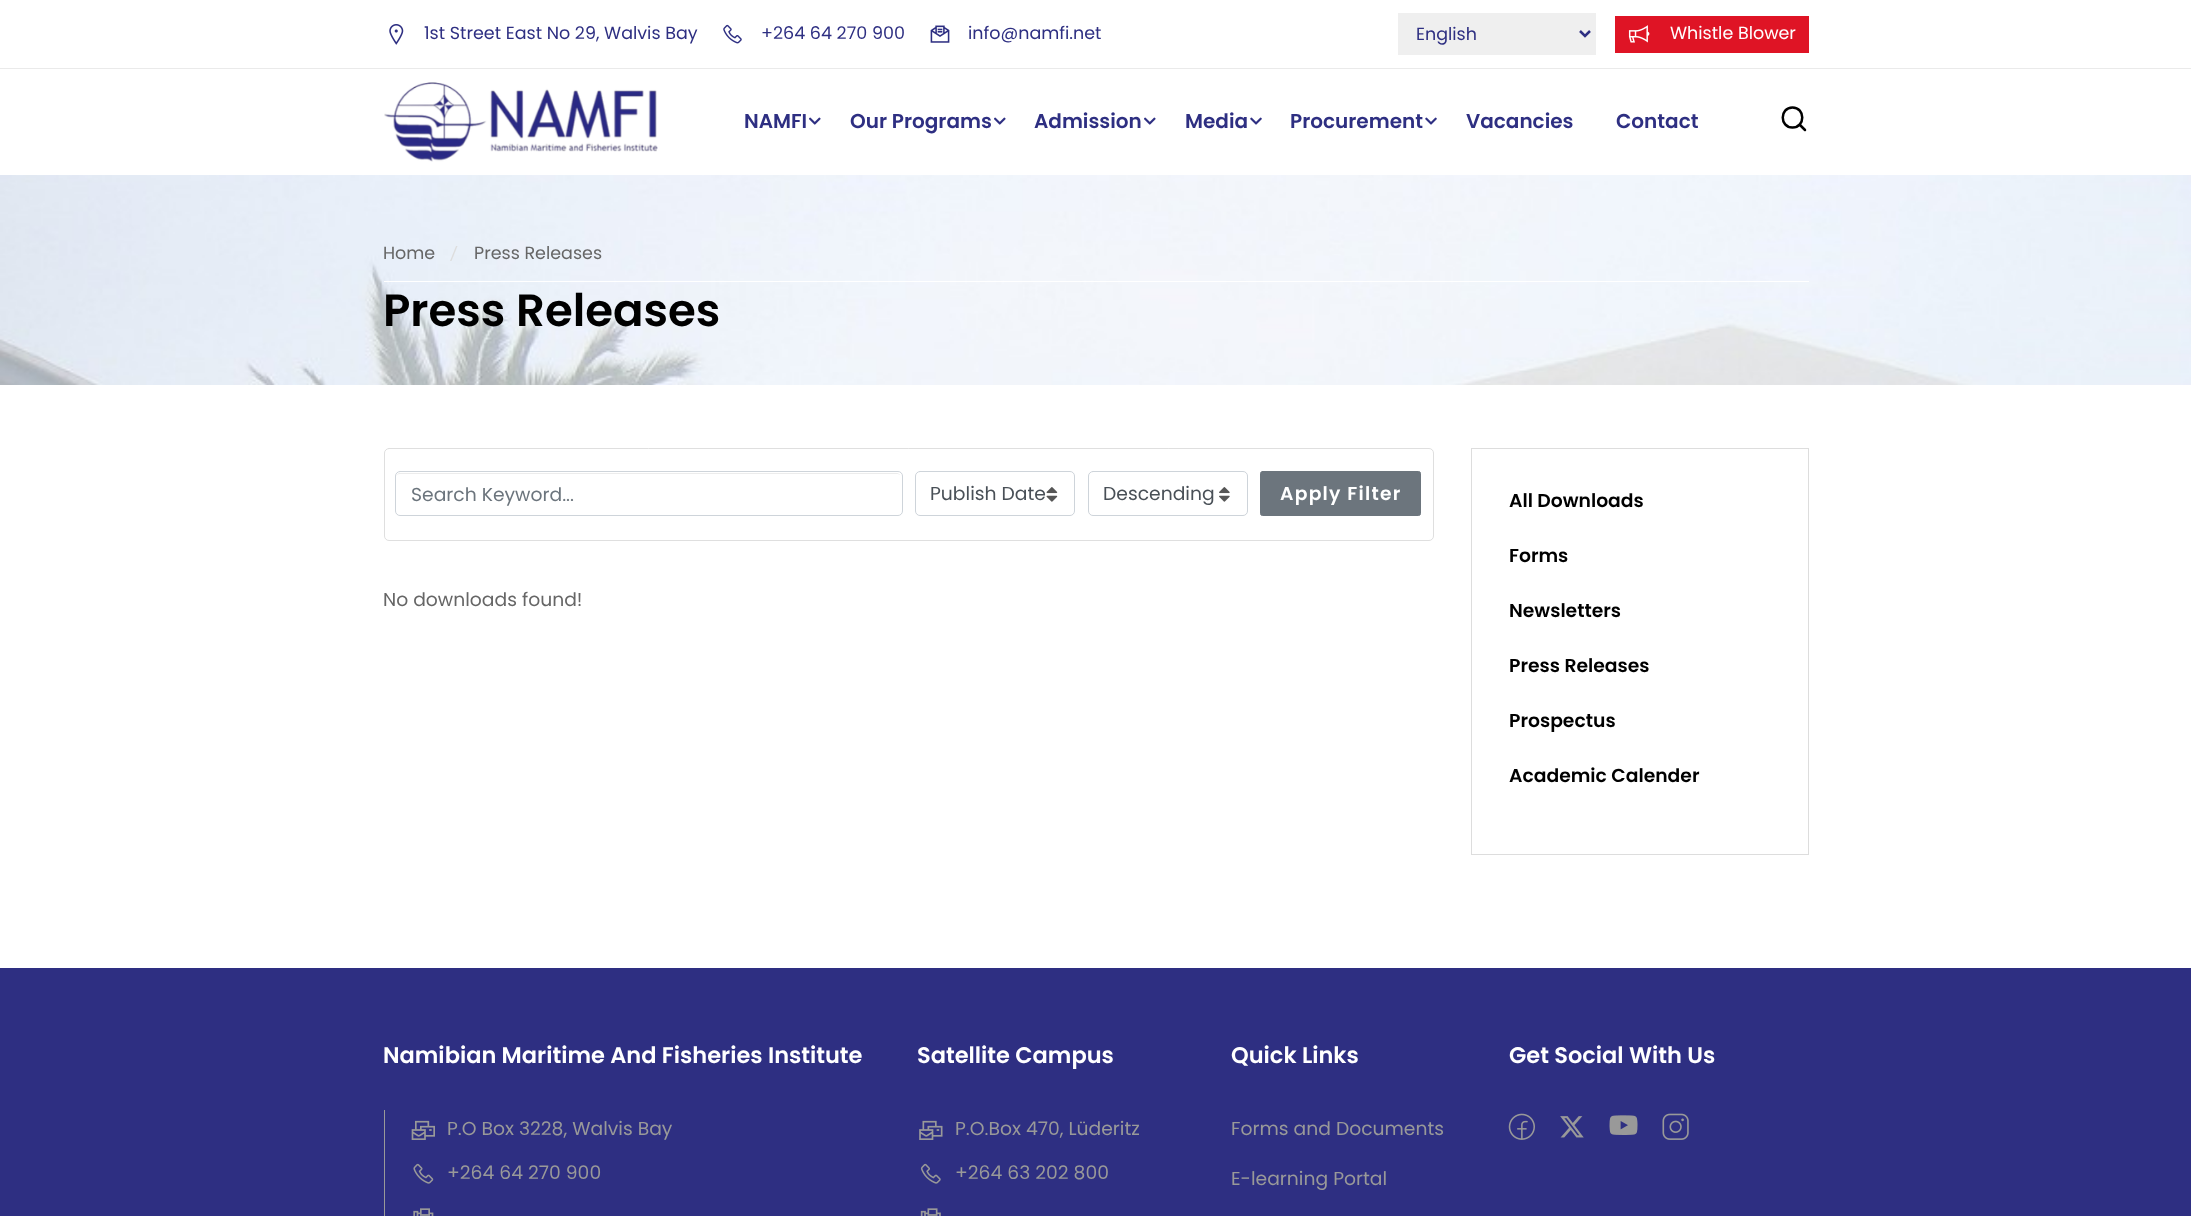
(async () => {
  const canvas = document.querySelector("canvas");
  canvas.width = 2191;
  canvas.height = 1216;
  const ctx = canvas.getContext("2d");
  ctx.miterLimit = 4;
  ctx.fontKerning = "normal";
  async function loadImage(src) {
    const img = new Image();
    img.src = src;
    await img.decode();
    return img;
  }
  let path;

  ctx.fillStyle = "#ffffff";
  ctx.fillRect(0, 0, 2191, 1216);
  ctx.fillStyle = "#eaeaea";
  ctx.fillRect(0, 68, 2191, 1);
  ctx.drawImage(await loadImage("img/1.png"), 389, 24, 15, 21);
  ctx.drawImage(await loadImage("img/2.png"), 723, 24, 19, 20);
  ctx.drawImage(await loadImage("img/3.png"), 930, 25, 20, 18);
  ctx.fillStyle = "#efefef";
  ctx.fillRect(1398, 13, 198, 42);
  path = new Path2D("M1580 31L1585 36L1590 31");
  ctx.strokeStyle = "#2e2f82";
  ctx.lineWidth = 2.5;
  ctx.stroke(path);
  ctx.fillStyle = "#df1425";
  ctx.fillRect(1615, 16, 194, 37);
  ctx.drawImage(await loadImage("img/4.png"), 1628, 25, 22, 18);
  ctx.drawImage(await loadImage("img/5.png"), 384, 82, 274, 80);
  ctx.drawImage(await loadImage("img/6.png"), 809, 117, 12, 8);
  ctx.drawImage(await loadImage("img/6.png"), 994, 117, 12, 8);
  ctx.drawImage(await loadImage("img/6.png"), 1144, 117, 12, 8);
  ctx.drawImage(await loadImage("img/7.png"), 1250, 117, 12, 8);
  ctx.drawImage(await loadImage("img/7.png"), 1425, 117, 12, 8);
  path = new Path2D("M1792.5 127.5C1805.5 127.5 1805.5 107.5 1792.5 107.5C1779.5 107.5 1779.5 127.5 1792.5 127.5ZM1805 130L1799.5 124.5");
  ctx.strokeStyle = "#000000";
  ctx.lineCap = "round";
  ctx.lineJoin = "round";
  ctx.stroke(path);
  ctx.drawImage(await loadImage("img/8.png"), 0, 175, 2191, 210);
  ctx.fillStyle = "#ffffff";
  ctx.fillRect(384, 281, 1425, 1);
  ctx.fillStyle = "#dddddd";
  path = new Path2D("M457.5 246L451.5 261H450L456 246Z");
  ctx.fill(path);
  ctx.beginPath();
  ctx.roundRect(384.5, 448.5, 1049, 92, 4.5);
  ctx.strokeStyle = "#dfdfdf";
  ctx.lineWidth = 1;
  ctx.lineJoin = "miter";
  ctx.stroke();
  ctx.fillStyle = "#ececec";
  path = new Path2D("M400 474H898L900 475C900 474 898 473 897 473H400C398 473 396 475 396 477C396 475 398 474 400 474Z");
  ctx.fill(path);
  ctx.beginPath();
  ctx.roundRect(395.5, 471.5, 507, 44, 4.5);
  ctx.strokeStyle = "#ced4da";
  ctx.stroke();
  ctx.drawImage(await loadImage("img/9.png"), 1046, 487, 12, 15);
  ctx.beginPath();
  ctx.roundRect(915.5, 471.5, 159, 44, 4.5);
  ctx.stroke();
  ctx.drawImage(await loadImage("img/10.png"), 1219, 487, 11, 15);
  ctx.beginPath();
  ctx.roundRect(1088.5, 471.5, 159, 44, 4.5);
  ctx.stroke();
  ctx.fillStyle = "#6c757d";
  ctx.beginPath();
  ctx.roundRect(1260.5, 471.5, 160, 44, 2);
  ctx.fill();
  ctx.strokeStyle = "#6c757d";
  ctx.stroke();
  ctx.strokeStyle = "#dddddd";
  ctx.strokeRect(1471.5, 448.5, 337, 406);
  ctx.fillStyle = "#2e2f82";
  ctx.fillRect(0, 968, 2191, 248);
  ctx.fillStyle = "#999999";
  ctx.fillRect(384, 1110, 1, 106);
  ctx.drawImage(await loadImage("img/11.png"), 411, 1120, 24, 20);
  ctx.drawImage(await loadImage("img/12.png"), 413, 1163, 21, 21);
  ctx.drawImage(await loadImage("img/13.png"), 413, 1208, 21, 8);
  ctx.drawImage(await loadImage("img/14.png"), 919, 1120, 24, 20);
  ctx.drawImage(await loadImage("img/15.png"), 920, 1163, 21, 21);
  ctx.drawImage(await loadImage("img/16.png"), 920, 1208, 21, 8);
  ctx.drawImage(await loadImage("img/17.png"), 1508, 1113, 27, 27);
  ctx.drawImage(await loadImage("img/18.png"), 1560, 1116, 24, 22);
  ctx.drawImage(await loadImage("img/19.png"), 1609, 1115, 29, 20);
  ctx.drawImage(await loadImage("img/20.png"), 1662, 1113, 27, 27);
  ctx.font = "17.5px Poppins";
  ctx.fillStyle = "#2e2f82";
  for (const [text, x, y] of [
    ["1st Street East No 29, Walvis Bay", 424, 39],
    ["+264 64 270 900", 761, 39],
    ["info@namfi.net", 968, 39],
    ["English", 1416, 40],
  ]) {
    ctx.fillText(text, x, y);
  }
  ctx.fillStyle = "#ffffff";
  ctx.fillText("Whistle Blower", 1670, 39);
  ctx.font = "600 20px Poppins";
  ctx.fillStyle = "#2e2f82";
  for (const [text, x, y] of [
    ["NAMFI", 744, 128],
    ["Our Programs", 850, 128],
    ["Admission", 1034, 128],
    ["Media", 1185, 128],
    ["Procurement", 1290, 128],
    ["Vacancies", 1466, 128],
    ["Contact", 1616, 128],
  ]) {
    ctx.fillText(text, x, y);
  }
  ctx.font = "17.5px Poppins";
  ctx.fillStyle = "#666666";
  ctx.fillText("Home", 383, 259);
  ctx.fillText("Press Releases", 474, 259);
  ctx.font = "600 45px Poppins";
  ctx.fillStyle = "#000000";
  ctx.fillText("Press Releases", 383, 326);
  ctx.font = "18.75px Poppins";
  ctx.fillStyle = "#6c757d";
  ctx.fillText("Search Keyword...", 411, 501);
  ctx.fillStyle = "#495057";
  ctx.fillText("Publish Date", 930, 500);
  ctx.fillText("Descending", 1103, 500);
  ctx.letterSpacing = "1.25px";
  ctx.font = "600 18.75px Poppins";
  ctx.fillStyle = "#ffffff";
  ctx.fillText("Apply Filter", 1280, 500);
  ctx.letterSpacing = "0px";
  ctx.font = "18.75px Poppins";
  ctx.fillStyle = "#666666";
  ctx.fillText("No downloads found!", 383, 606);
  ctx.font = "600 18.75px Poppins";
  ctx.fillStyle = "#000000";
  for (const [text, x, y] of [
    ["All Downloads", 1509, 507],
    ["Forms", 1509, 562],
    ["Newsletters", 1509, 617],
    ["Press Releases", 1509, 672],
    ["Prospectus", 1509, 727],
    ["Academic Calender", 1509, 782],
  ]) {
    ctx.fillText(text, x, y);
  }
  ctx.font = "600 22.5px Poppins";
  ctx.fillStyle = "#ffffff";
  ctx.fillText("Namibian Maritime And Fisheries Institute", 383, 1063);
  ctx.font = "18.75px Poppins";
  ctx.fillStyle = "#999999";
  ctx.fillText("P.O Box 3228, Walvis Bay", 447, 1135);
  ctx.fillText("+264 64 270 900", 447, 1179);
  ctx.font = "600 22.5px Poppins";
  ctx.fillStyle = "#ffffff";
  ctx.fillText("Satellite Campus", 917, 1063);
  ctx.font = "18.75px Poppins";
  ctx.fillStyle = "#999999";
  ctx.fillText("P.O.Box 470, Lüderitz", 955, 1135);
  ctx.fillText("+264 63 202 800", 955, 1179);
  ctx.font = "600 22.5px Poppins";
  ctx.fillStyle = "#ffffff";
  ctx.fillText("Quick Links", 1231, 1063);
  ctx.font = "18.75px Poppins";
  ctx.fillStyle = "#999999";
  ctx.fillText("Forms and Documents", 1231, 1135);
  ctx.fillText("E-learning Portal", 1231, 1185);
  ctx.font = "600 22.5px Poppins";
  ctx.fillStyle = "#ffffff";
  ctx.fillText("Get Social With Us", 1509, 1063);
})();
